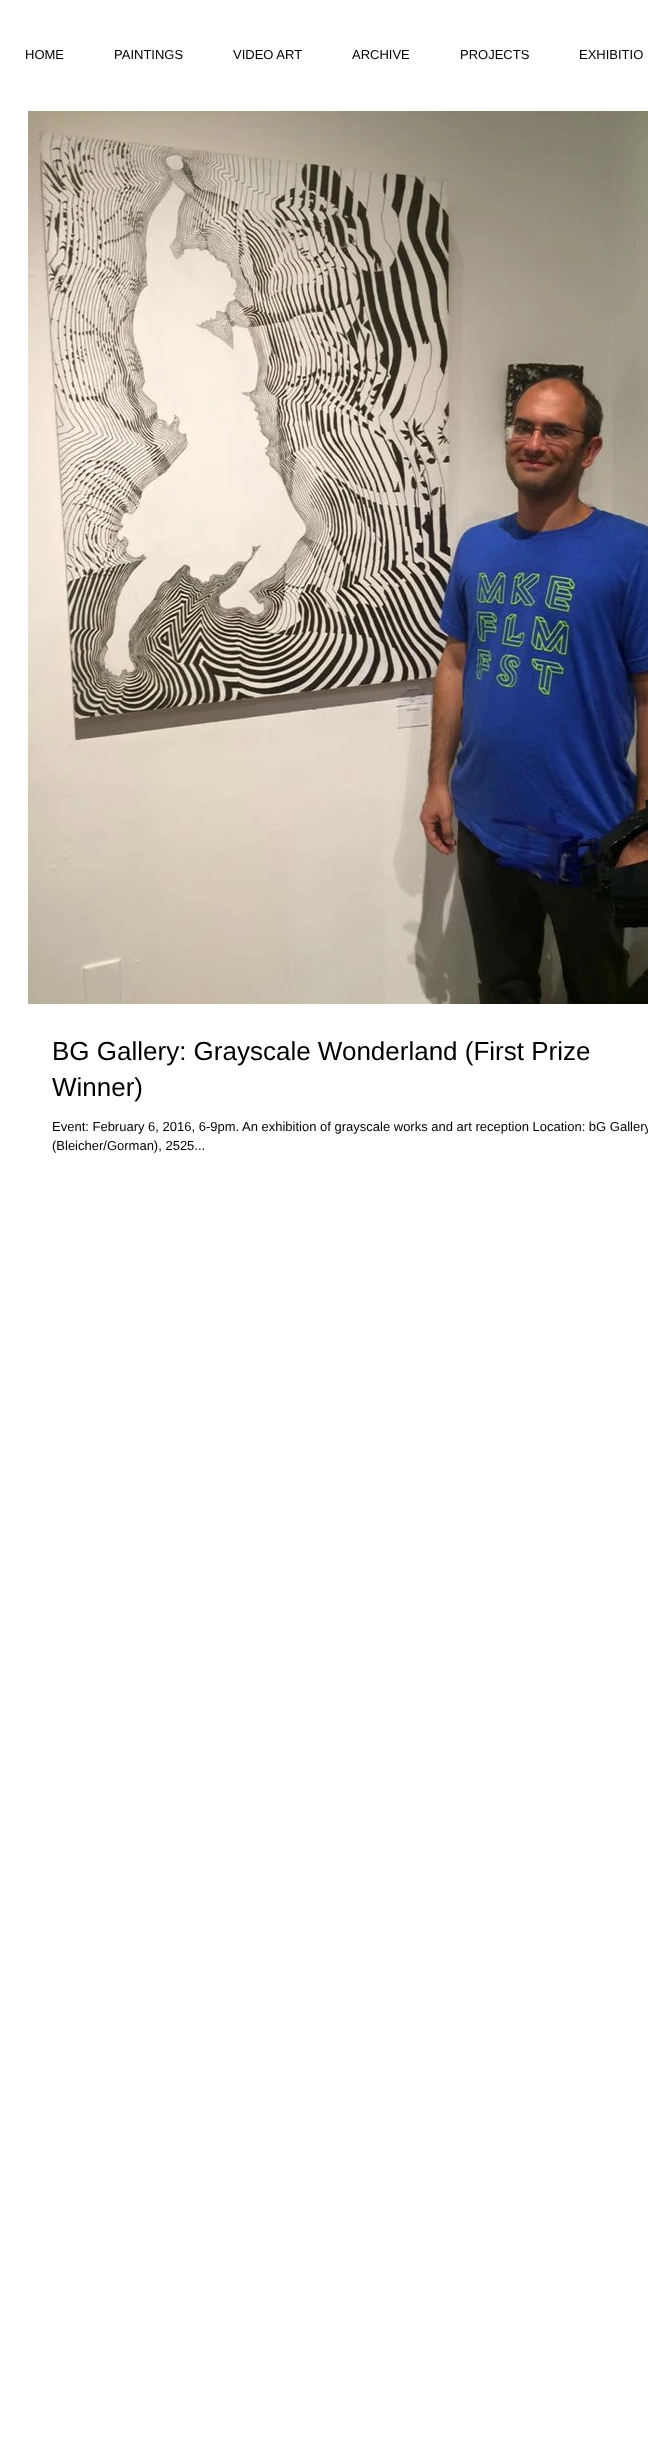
(async () => {
  const canvas = document.querySelector("canvas");
  canvas.width = 648;
  canvas.height = 2439;
  const ctx = canvas.getContext("2d");
  ctx.miterLimit = 4;
  ctx.fontKerning = "normal";
  async function loadImage(src) {
    const img = new Image();
    img.src = src;
    await img.decode();
    return img;
  }

  ctx.fillStyle = "#ffffff";
  ctx.fillRect(0, 0, 648, 2439);
  ctx.drawImage(await loadImage("img/1.png"), 28, 111, 620, 893);
  ctx.font = "13px Liberation Sans";
  ctx.fillStyle = "#000000";
  for (const [text, x, y] of [
    ["HOME", 25, 59],
    ["PAINTINGS", 114, 59],
    ["VIDEO ART", 233, 59],
    ["ARCHIVE", 352, 59],
    ["PROJECTS", 460, 59],
    ["EXHIBITIO", 579, 59],
  ]) {
    ctx.fillText(text, x, y);
  }
  ctx.font = "26px Liberation Sans";
  ctx.fillText("BG Gallery: Grayscale Wonderland (First Prize", 52, 1060);
  ctx.fillText("Winner)", 52, 1096);
  ctx.font = "13px Liberation Sans";
  for (const [text, x, y] of [
    ["Event: February 6, 2016, 6-9pm.", 52, 1131],
    ["An exhibition of grayscale works and art reception Location: bG Gallery", 242, 1131],
    ["(Bleicher/Gorman), 2525...", 52, 1150],
  ]) {
    ctx.fillText(text, x, y);
  }
})();
